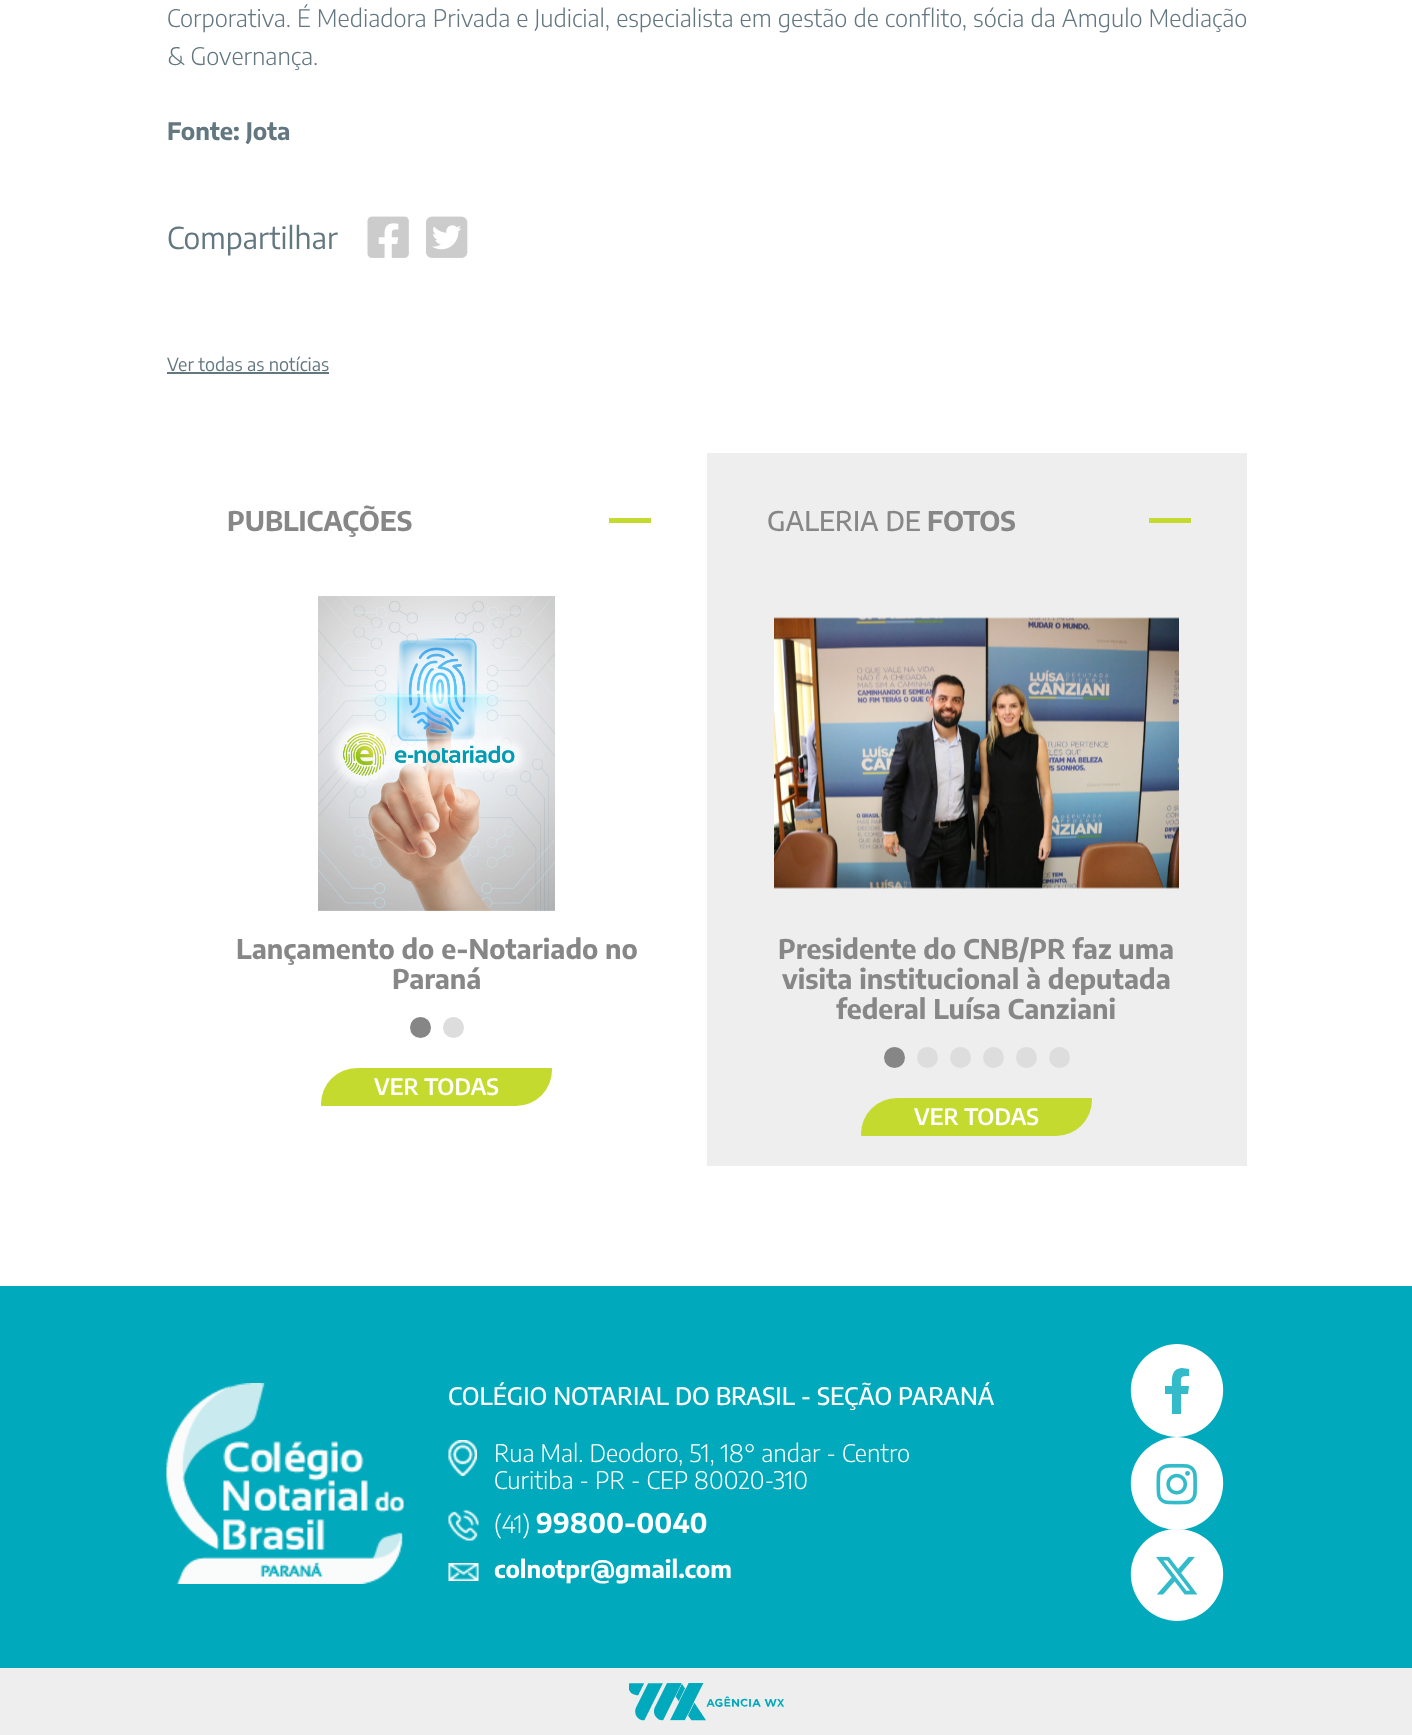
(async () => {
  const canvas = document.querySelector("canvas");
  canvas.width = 1412;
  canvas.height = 1735;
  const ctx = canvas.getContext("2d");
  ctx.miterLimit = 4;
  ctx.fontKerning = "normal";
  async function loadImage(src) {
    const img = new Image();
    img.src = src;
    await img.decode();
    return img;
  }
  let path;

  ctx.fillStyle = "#ffffff";
  ctx.fillRect(0, 0, 1412, 1735);
  ctx.drawImage(await loadImage("img/1.png"), 367, 216, 42, 42);
  ctx.drawImage(await loadImage("img/2.png"), 426, 216, 42, 42);
  ctx.fillStyle = "#63777f";
  ctx.fillRect(167, 372, 162, 2);
  ctx.fillStyle = "#c4da2f";
  ctx.fillRect(609, 518, 42, 5);
  ctx.drawImage(await loadImage("img/3.png"), 318, 596, 237, 315);
  ctx.fillStyle = "#868686";
  ctx.beginPath();
  ctx.arc(420.5, 1027.5, 10.5, 0, Math.PI * 2);
  ctx.fill();
  ctx.fillStyle = "#dddddd";
  ctx.beginPath();
  ctx.arc(453.5, 1027.5, 10.5, 0, Math.PI * 2);
  ctx.fill();
  ctx.fillStyle = "#c4da2f";
  ctx.beginPath();
  ctx.roundRect(321, 1068, 231, 38, [36, 1, 36, 1]);
  ctx.fill();
  ctx.fillStyle = "#eeeeee";
  ctx.fillRect(707, 453, 540, 713);
  ctx.fillStyle = "#c4da2f";
  ctx.fillRect(1149, 518, 42, 5);
  ctx.drawImage(await loadImage("img/4.png"), 774, 617, 405, 272);
  ctx.fillStyle = "#868686";
  ctx.beginPath();
  ctx.arc(894.5, 1057.5, 10.5, 0, Math.PI * 2);
  ctx.fill();
  ctx.fillStyle = "#dddddd";
  ctx.beginPath();
  ctx.arc(927.5, 1057.5, 10.5, 0, Math.PI * 2);
  ctx.fill();
  ctx.beginPath();
  ctx.arc(960.5, 1057.5, 10.5, 0, Math.PI * 2);
  ctx.fill();
  ctx.beginPath();
  ctx.arc(993.5, 1057.5, 10.5, 0, Math.PI * 2);
  ctx.fill();
  ctx.beginPath();
  ctx.arc(1026.5, 1057.5, 10.5, 0, Math.PI * 2);
  ctx.fill();
  ctx.beginPath();
  ctx.arc(1059.5, 1057.5, 10.5, 0, Math.PI * 2);
  ctx.fill();
  ctx.fillStyle = "#c4da2f";
  ctx.beginPath();
  ctx.roundRect(861, 1098, 231, 38, [36, 1, 36, 1]);
  ctx.fill();
  ctx.fillStyle = "#00aabc";
  ctx.fillRect(0, 1286, 1412, 382);
  ctx.drawImage(await loadImage("img/5.png"), 166, 1383, 238, 201);
  ctx.drawImage(await loadImage("img/6.png"), 448, 1440, 29, 36);
  ctx.drawImage(await loadImage("img/7.png"), 448, 1510, 31, 31);
  ctx.drawImage(await loadImage("img/8.png"), 448, 1563, 31, 18);
  ctx.fillStyle = "#ffffff";
  path = new Path2D("M1177 1437C1221 1436 1240 1381 1205 1354C1197 1348 1187 1344 1177 1344C1167 1344 1157 1348 1149 1354C1114 1381 1133 1436 1177 1437Z");
  ctx.fill(path);
  ctx.fillStyle = "#33bbc9";
  path = new Path2D("M1188 1394L1189 1386H1181C1181 1377 1180 1376 1189 1376V1369L1182 1368C1171 1369 1172 1378 1172 1386H1165V1394H1172V1414H1181V1394Z");
  ctx.fill(path);
  ctx.fillStyle = "#ffffff";
  path = new Path2D("M1177 1530C1221 1529 1240 1474 1205 1447C1197 1441 1187 1437 1177 1437C1167 1437 1157 1441 1149 1447C1114 1474 1133 1529 1177 1530Z");
  ctx.fill(path);
  ctx.drawImage(await loadImage("img/9.png"), 1156, 1463, 41, 42);
  path = new Path2D("M1177 1621C1221 1620 1240 1565 1205 1538C1197 1532 1187 1529 1177 1529C1167 1529 1157 1532 1149 1538C1114 1565 1133 1620 1177 1621Z");
  ctx.fill(path);
  ctx.drawImage(await loadImage("img/10.png"), 1156, 1556, 42, 39);
  ctx.fillStyle = "#eeeeee";
  ctx.fillRect(0, 1668, 1412, 67);
  ctx.drawImage(await loadImage("img/11.png"), 629, 1683, 155, 38);
  ctx.wordSpacing = "0.25px";
  ctx.font = "300 24px Encode Sans Condensed";
  ctx.fillStyle = "#637781";
  ctx.fillText("Corporativa. É Mediadora Privada e Judicial, especialista em gestão de conflito, sócia da Amgulo Mediação", 167, 27);
  ctx.wordSpacing = "0px";
  ctx.fillText("& Governança.", 167, 65);
  ctx.font = "bold 24px Encode Sans Condensed";
  ctx.fillText("Fonte: Jota", 167, 140);
  ctx.font = "30px Encode Sans Condensed";
  ctx.fillText("Compartilhar", 167, 249);
  ctx.font = "18px Encode Sans Condensed";
  ctx.fillText("Ver todas as notícias", 167, 371);
  ctx.font = "bold 27px Encode Sans Condensed";
  ctx.fillStyle = "#878787";
  for (const [text, x, y] of [
    ["PUBLICAÇÕES", 227, 531],
    ["Lançamento do e-Notariado no", 236, 959],
    ["Paraná", 392, 989],
  ]) {
    ctx.fillText(text, x, y);
  }
  ctx.font = "600 22.5px Encode Sans Condensed";
  ctx.fillStyle = "#ffffff";
  ctx.fillText("VER TODAS", 374, 1095);
  ctx.font = "500 27px Encode Sans Condensed";
  ctx.fillStyle = "#878787";
  ctx.fillText("GALERIA DE", 767, 531);
  ctx.font = "bold 27px Encode Sans Condensed";
  for (const [text, x, y] of [
    ["FOTOS", 927, 531],
    ["Presidente do CNB/PR faz uma", 778, 959],
    ["visita institucional à deputada", 782, 989],
    ["federal Luísa Canziani", 836, 1019],
  ]) {
    ctx.fillText(text, x, y);
  }
  ctx.font = "600 22.5px Encode Sans Condensed";
  ctx.fillStyle = "#ffffff";
  ctx.fillText("VER TODAS", 914, 1125);
  ctx.font = "500 24px Encode Sans Condensed";
  ctx.fillText("COLÉGIO NOTARIAL DO BRASIL - SEÇÃO PARANÁ", 448, 1405);
  ctx.font = "300 24px Encode Sans Condensed";
  for (const [text, x, y] of [
    ["Rua Mal. Deodoro, 51, 18° andar - Centro", 494, 1462],
    ["Curitiba - PR - CEP 80020-310", 494, 1489],
    ["(41)", 494, 1533],
  ]) {
    ctx.fillText(text, x, y);
  }
  ctx.font = "bold 27px Encode Sans Condensed";
  ctx.fillText("99800-0040", 536, 1533);
  ctx.font = "bold 24px Encode Sans Condensed";
  ctx.fillText("colnotpr@gmail.com", 494, 1578);
})();
